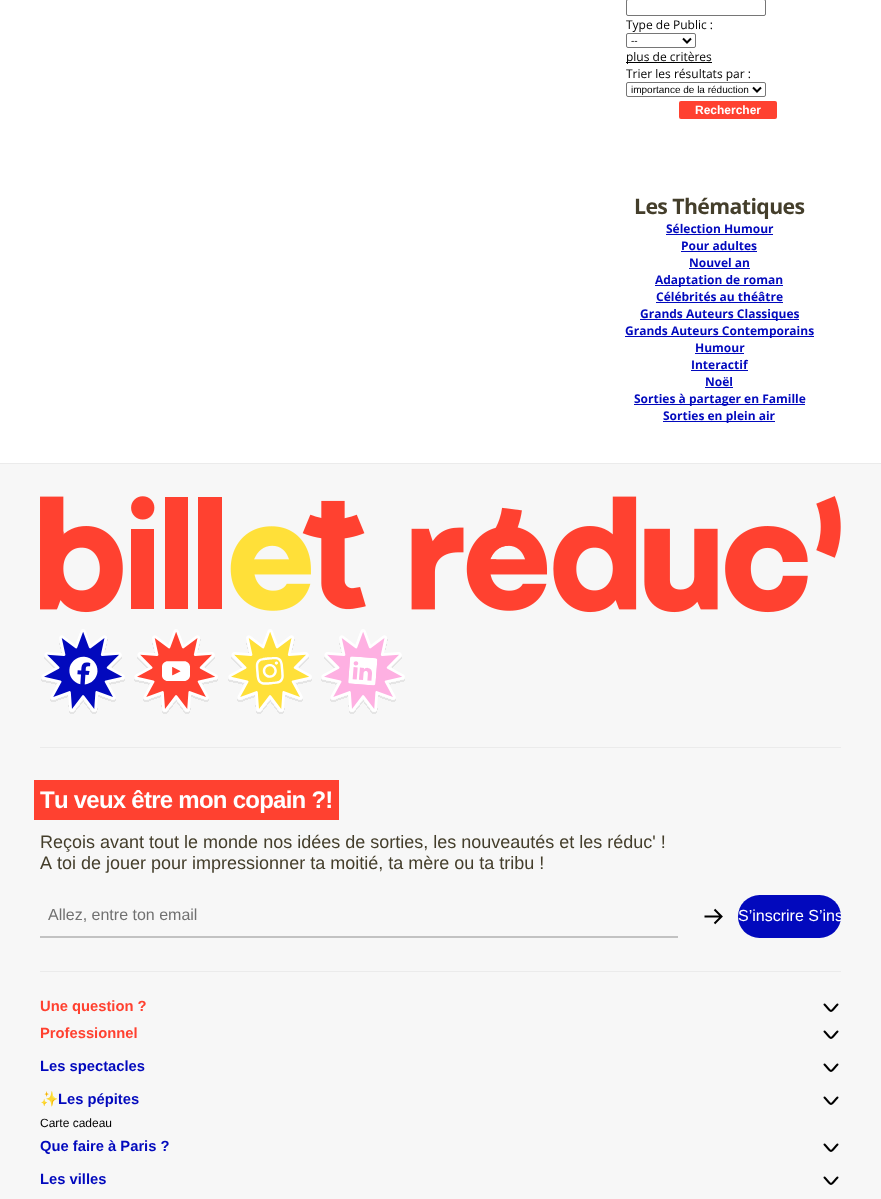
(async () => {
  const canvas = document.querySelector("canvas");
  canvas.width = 881;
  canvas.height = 1199;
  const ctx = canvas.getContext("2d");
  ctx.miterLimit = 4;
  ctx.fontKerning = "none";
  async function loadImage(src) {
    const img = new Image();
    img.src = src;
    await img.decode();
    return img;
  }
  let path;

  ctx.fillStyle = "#ffffff";
  ctx.fillRect(0, 0, 881, 1199);
  ctx.beginPath();
  ctx.roundRect(626.5, -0.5, 139, 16, 1.5);
  ctx.strokeStyle = "#767676";
  ctx.stroke();
  ctx.beginPath();
  ctx.roundRect(626.5, 33.5, 69, 14, 1.5);
  ctx.stroke();
  path = new Path2D("M683 38.5L687 42.5L691 38.5");
  ctx.strokeStyle = "#000000";
  ctx.lineWidth = 2;
  ctx.stroke(path);
  ctx.fillStyle = "#000000";
  ctx.fillRect(626, 62, 86, 1);
  ctx.beginPath();
  ctx.roundRect(626.5, 82.5, 139, 14, 1.5);
  ctx.strokeStyle = "#767676";
  ctx.lineWidth = 1;
  ctx.stroke();
  path = new Path2D("M753 87.5L757 91.5L761 87.5");
  ctx.strokeStyle = "#000000";
  ctx.lineWidth = 2;
  ctx.stroke(path);
  ctx.fillStyle = "#ff4130";
  ctx.beginPath();
  ctx.roundRect(679, 101, 98, 18, 2);
  ctx.fill();
  for (const [x, y, w, h, color] of [
    [666, 234, 107, 1, "#0209bd"],
    [681, 251, 76, 1, "#0209bd"],
    [689, 268, 61, 1, "#0209bd"],
    [655, 285, 128, 1, "#0209bd"],
    [656, 302, 127, 1, "#0209bd"],
    [640, 319, 159, 1, "#0209bd"],
    [625, 336, 189, 1, "#0209bd"],
    [695, 353, 49, 1, "#0209bd"],
    [691, 370, 57, 1, "#0209bd"],
    [705, 387, 28, 1, "#0209bd"],
    [634, 404, 171, 1, "#0209bd"],
    [663, 421, 112, 1, "#0209bd"],
    [0, 464, 881, 735, "#f7f7f7"],
    [0, 463, 881, 1, "#ebebeb"],
  ]) {
    ctx.fillStyle = color;
    ctx.fillRect(x, y, w, h);
  }
  ctx.drawImage(await loadImage("img/1.png"), 40, 496, 801, 117);
  ctx.drawImage(await loadImage("img/2.png"), 41, 629, 84, 85);
  ctx.drawImage(await loadImage("img/3.png"), 134, 629, 84, 85);
  ctx.drawImage(await loadImage("img/4.png"), 228, 629, 84, 85);
  ctx.drawImage(await loadImage("img/5.png"), 321, 629, 84, 85);
  for (const [x, y, w, h, color] of [
    [40, 747, 801, 1, "#ebebeb"],
    [34, 780, 305, 40, "#ff4130"],
    [40, 936, 638, 2, "#c2c2c2"],
  ]) {
    ctx.fillStyle = color;
    ctx.fillRect(x, y, w, h);
  }
  path = new Path2D("M714.5 909.5L721.5 916.5L714.5 923.5M704.5 916.5H721");
  ctx.stroke(path);
  ctx.fillStyle = "#0209bd";
  ctx.beginPath();
  ctx.roundRect(738, 895, 103, 43, 21.5);
  ctx.fill();
  ctx.fillStyle = "#ebebeb";
  ctx.fillRect(40, 971, 801, 1);
  path = new Path2D("M837.5 1004.5C829.5 1013 832.5 1013 824.5 1004.5");
  ctx.lineCap = "round";
  ctx.lineJoin = "round";
  ctx.stroke(path);
  path = new Path2D("M837.5 1031.5C829.5 1040 832.5 1040 824.5 1031.5");
  ctx.stroke(path);
  path = new Path2D("M837.5 1064.5C829.5 1073 832.5 1073 824.5 1064.5");
  ctx.stroke(path);
  path = new Path2D("M837.5 1097.5C829.5 1106 832.5 1106 824.5 1097.5");
  ctx.stroke(path);
  path = new Path2D("M837.5 1144.5C829.5 1153 832.5 1153 824.5 1144.5");
  ctx.stroke(path);
  path = new Path2D("M837.5 1177.5C829.5 1186 832.5 1186 824.5 1177.5");
  ctx.stroke(path);
  ctx.font = "12px Open Sans";
  ctx.fillStyle = "#000000";
  ctx.fillText("Type de Public :", 626, 29);
  ctx.font = "10px Liberation Sans";
  ctx.fillText("--", 631, 44);
  ctx.font = "12px Open Sans";
  ctx.fillText("plus de critères", 626, 61);
  ctx.fillText("Trier les résultats par :", 626, 78);
  ctx.font = "10px Liberation Sans";
  ctx.fillText("importance de la réduction", 631, 93);
  ctx.font = "bold 12px Liberation Sans";
  ctx.fillStyle = "#ffffff";
  ctx.fillText("Rechercher", 695, 114);
  ctx.letterSpacing = "-0.6px";
  ctx.font = "bold 21.25px Open Sans";
  ctx.fillStyle = "#443e2b";
  ctx.fillText("Les Thématiques", 634, 214);
  ctx.letterSpacing = "0px";
  ctx.font = "bold 12px Open Sans";
  ctx.fillStyle = "#0209bd";
  for (const [text, x, y] of [
    ["Sélection Humour", 666, 233],
    ["Pour adultes", 681, 250],
    ["Nouvel an", 689, 267],
    ["Adaptation de roman", 655, 284],
    ["Célébrités au théâtre", 656, 301],
    ["Grands Auteurs Classiques", 640, 318],
    ["Grands Auteurs Contemporains", 625, 335],
    ["Humour", 695, 352],
    ["Interactif", 691, 369],
    ["Noël", 705, 386],
    ["Sorties à partager en Famille", 634, 403],
    ["Sorties en plein air", 663, 420],
  ]) {
    ctx.fillText(text, x, y);
  }
  ctx.letterSpacing = "-0.75px";
  ctx.font = "bold 24px Liberation Sans";
  ctx.fillStyle = "#ffffff";
  ctx.fillText("Tu veux être mon copain ?!", 40, 808);
  ctx.letterSpacing = "0px";
  ctx.font = "18px Liberation Sans";
  ctx.fillStyle = "#443e2b";
  ctx.fillText("Reçois avant tout le monde nos idées de sorties, les nouveautés et les réduc' !", 40, 848);
  ctx.fillText("A toi de jouer pour impressionner ta moitié, ta mère ou ta tribu !", 40, 869);
  ctx.font = "16px Liberation Sans";
  ctx.fillStyle = "#717171";
  ctx.fillText("Allez, entre ton email", 48, 920);
  ctx.save();
  ctx.beginPath();
  ctx.rect(738, 892, 103, 48);
  ctx.clip();
  ctx.fillStyle = "#ffffff";
  ctx.fillText("S’inscrire S’ins", 738, 921);
  ctx.restore();
  ctx.font = "bold 14.75px Liberation Sans";
  ctx.fillStyle = "#ff4130";
  ctx.fillText("Une question ?", 40, 1011);
  ctx.fillText("Professionnel", 40, 1038);
  ctx.fillStyle = "#0209bd";
  ctx.fillText("Les spectacles", 40, 1071);
  ctx.font = "bold 14.75px Noto Color Emoji";
  ctx.fillText("✨", 40, 1104);
  ctx.font = "bold 14.75px Liberation Sans";
  ctx.fillText("Les pépites", 58, 1104);
  ctx.font = "12px Liberation Sans";
  ctx.fillStyle = "#000000";
  ctx.fillText("Carte cadeau", 40, 1127);
  ctx.font = "bold 14.75px Liberation Sans";
  ctx.fillStyle = "#0209bd";
  ctx.fillText("Que faire à Paris ?", 40, 1151);
  ctx.fillText("Les villes", 40, 1184);
})();
